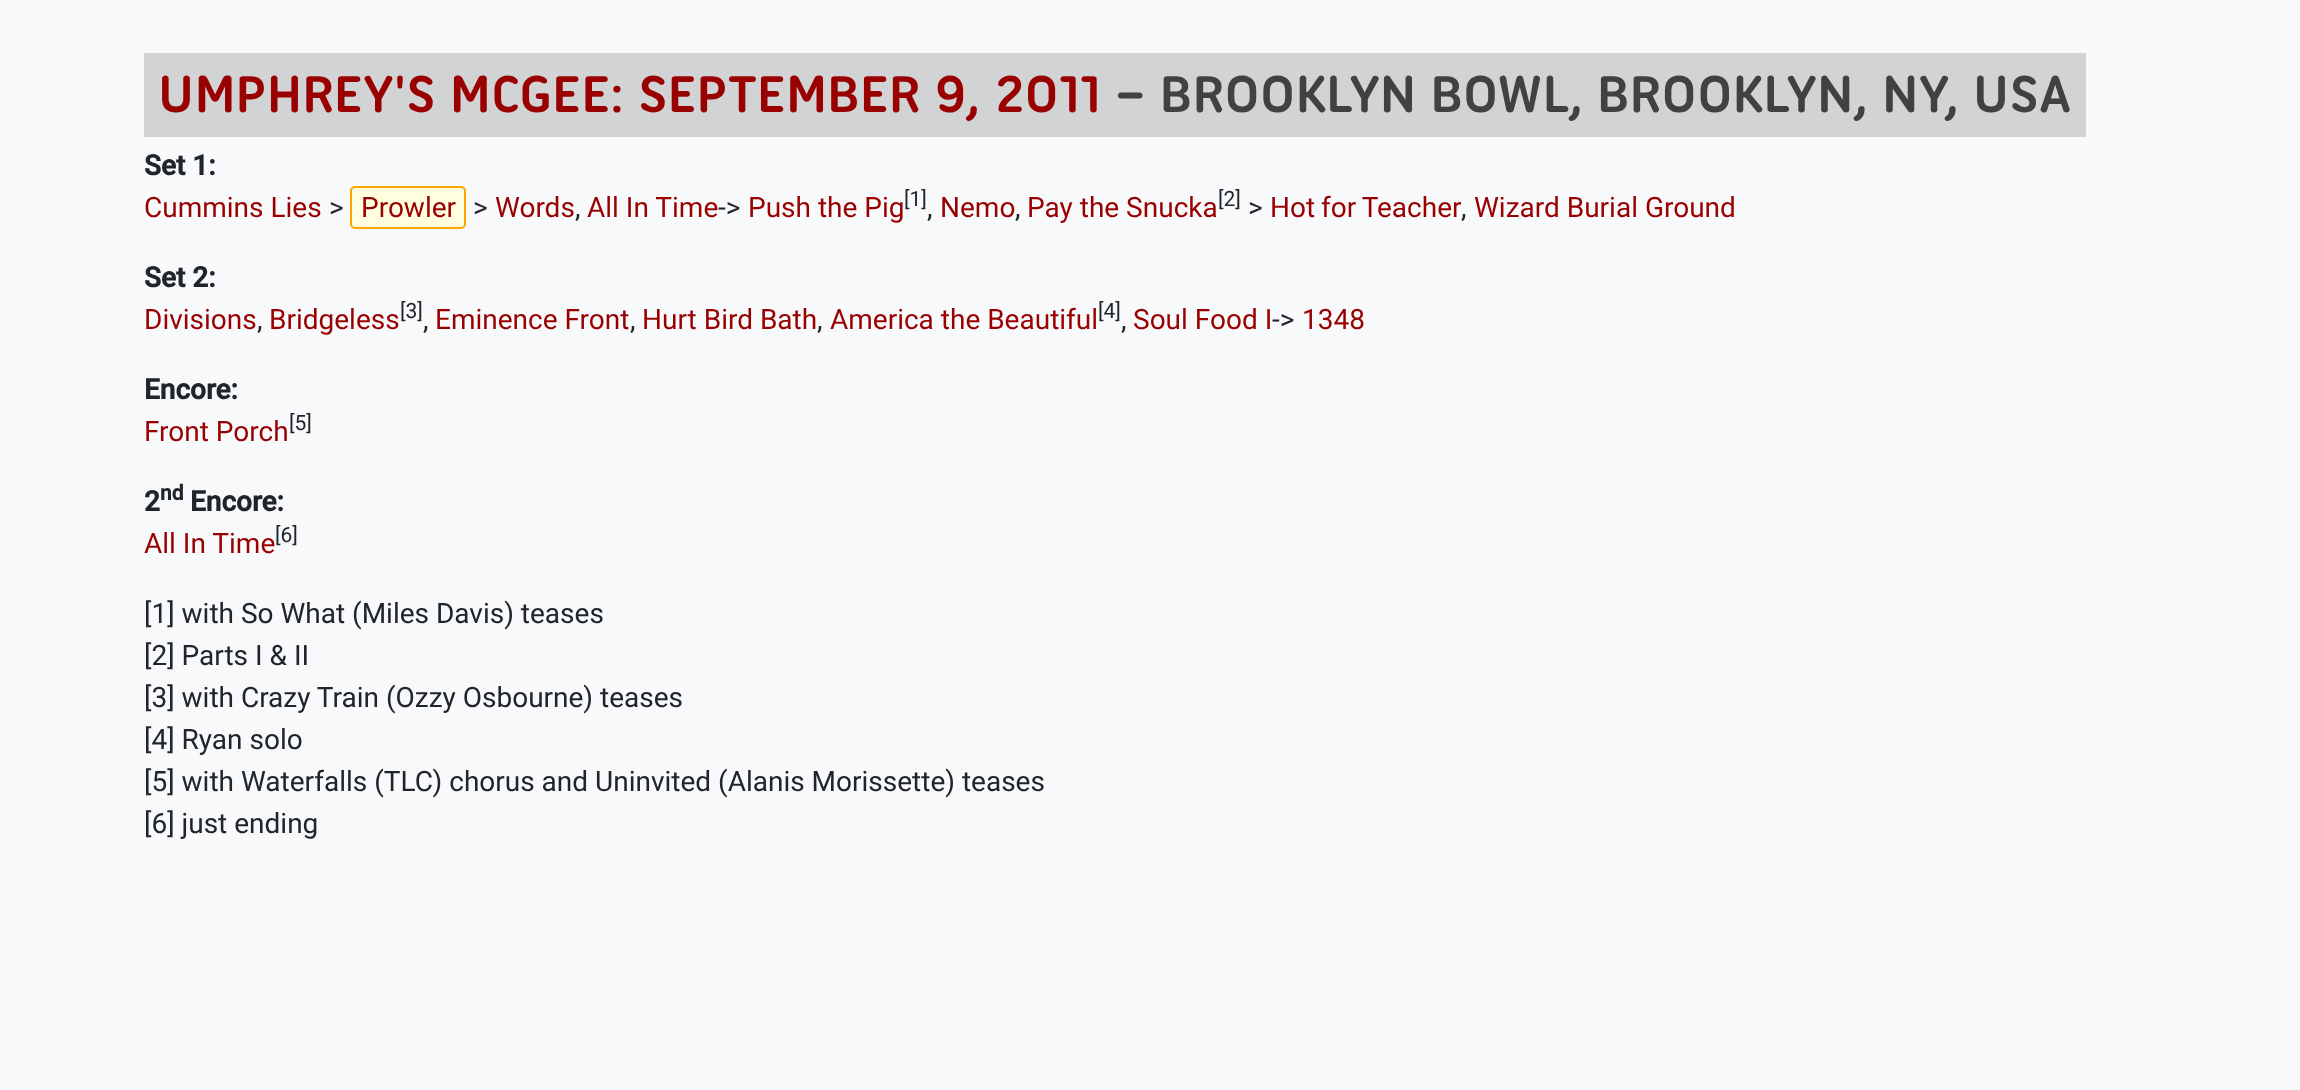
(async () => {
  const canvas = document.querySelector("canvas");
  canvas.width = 2300;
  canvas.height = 1090;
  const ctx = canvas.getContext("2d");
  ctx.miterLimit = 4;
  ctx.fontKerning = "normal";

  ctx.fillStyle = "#f8f9fa";
  ctx.fillRect(0, 0, 2300, 1090);
  ctx.fillStyle = "#d1d3d4";
  ctx.fillRect(144, 53, 1942, 84);
  ctx.fillStyle = "#ffffe0";
  ctx.beginPath();
  ctx.roundRect(351, 187, 114, 41, 4);
  ctx.fill();
  ctx.strokeStyle = "#ffa500";
  ctx.lineWidth = 2;
  ctx.stroke();
  ctx.font = "bold 56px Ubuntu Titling";
  ctx.fillStyle = "#990000";
  ctx.fillText("UMPHREY'S MCGEE: SEPTEMBER 9, 2011", 158, 112);
  ctx.fillStyle = "#414042";
  ctx.fillText("– BROOKLYN BOWL, BROOKLYN, NY, USA", 1115, 112);
  ctx.font = "bold 28px Roboto";
  ctx.fillStyle = "#212529";
  ctx.fillText("Set 1:", 144, 175);
  ctx.font = "28px Roboto";
  ctx.fillStyle = "#990000";
  ctx.fillText("Cummins Lies", 144, 217);
  ctx.fillStyle = "#212529";
  ctx.fillText(">", 329, 217);
  ctx.fillStyle = "#990000";
  ctx.fillText("Prowler", 361, 217);
  ctx.fillStyle = "#212529";
  ctx.fillText(">", 473, 217);
  ctx.fillStyle = "#990000";
  ctx.fillText("Words", 495, 217);
  ctx.fillText("All In Time", 587, 217);
  ctx.fillStyle = "#212529";
  ctx.fillText("->", 718, 217);
  ctx.fillStyle = "#990000";
  ctx.fillText("Push the Pig", 748, 217);
  ctx.font = "21px Roboto";
  ctx.fillStyle = "#212529";
  ctx.fillText("[1]", 904, 206);
  ctx.font = "28px Roboto";
  ctx.fillStyle = "#990000";
  ctx.fillText("Nemo", 940, 217);
  ctx.fillText("Pay the Snucka", 1027, 217);
  ctx.font = "21px Roboto";
  ctx.fillStyle = "#212529";
  ctx.fillText("[2]", 1218, 206);
  ctx.font = "28px Roboto";
  ctx.fillText(">", 1248, 217);
  ctx.wordSpacing = "-1px";
  ctx.fillStyle = "#990000";
  ctx.fillText("Hot for Teacher", 1270, 217);
  ctx.wordSpacing = "0px";
  ctx.fillText("Wizard Burial Ground", 1474, 217);
  ctx.fillStyle = "#212529";
  for (const [text, x, y] of [
    [",", 575, 217],
    [",", 927, 217],
    [",", 1015, 217],
    [",", 1461, 217],
  ]) {
    ctx.fillText(text, x, y);
  }
  ctx.font = "bold 28px Roboto";
  ctx.fillText("Set 2:", 144, 287);
  ctx.font = "28px Roboto";
  ctx.fillStyle = "#990000";
  ctx.fillText("Divisions", 144, 329);
  ctx.fillText("Bridgeless", 269, 329);
  ctx.font = "21px Roboto";
  ctx.fillStyle = "#212529";
  ctx.fillText("[3]", 400, 318);
  ctx.font = "28px Roboto";
  ctx.fillStyle = "#990000";
  for (const [text, x, y] of [
    ["Eminence Front", 435, 329],
    ["Hurt Bird Bath", 642, 329],
    ["America the Beautiful", 830, 329],
  ]) {
    ctx.fillText(text, x, y);
  }
  ctx.font = "21px Roboto";
  ctx.fillStyle = "#212529";
  ctx.fillText("[4]", 1098, 318);
  ctx.font = "28px Roboto";
  ctx.fillStyle = "#990000";
  ctx.fillText("Soul Food I", 1133, 329);
  ctx.fillStyle = "#212529";
  ctx.fillText("->", 1272, 329);
  ctx.fillStyle = "#990000";
  ctx.fillText("1348", 1302, 329);
  ctx.fillStyle = "#212529";
  for (const [text, x, y] of [
    [",", 257, 329],
    [",", 423, 329],
    [",", 630, 329],
    [",", 817, 329],
    [",", 1121, 329],
  ]) {
    ctx.fillText(text, x, y);
  }
  ctx.font = "bold 28px Roboto";
  ctx.fillText("Encore:", 144, 399);
  ctx.font = "28px Roboto";
  ctx.fillStyle = "#990000";
  ctx.fillText("Front Porch", 144, 441);
  ctx.font = "21px Roboto";
  ctx.fillStyle = "#212529";
  ctx.fillText("[5]", 289, 430);
  ctx.font = "bold 28px Roboto";
  ctx.fillText("2", 144, 511);
  ctx.font = "bold 21px Roboto";
  ctx.fillText("nd", 160, 500);
  ctx.font = "bold 28px Roboto";
  ctx.fillText("Encore:", 190, 511);
  ctx.font = "28px Roboto";
  ctx.fillStyle = "#990000";
  ctx.fillText("All In Time", 144, 553);
  ctx.font = "21px Roboto";
  ctx.fillStyle = "#212529";
  ctx.fillText("[6]", 275, 542);
  ctx.font = "28px Roboto";
  for (const [text, x, y] of [
    ["[1] with So What (Miles Davis) teases", 144, 623],
    ["[2] Parts I & II", 144, 665],
    ["[3] with Crazy Train (Ozzy Osbourne) teases", 144, 707],
    ["[4] Ryan solo", 144, 749],
    ["[5] with Waterfalls (TLC) chorus and Uninvited (Alanis Morissette) teases", 144, 791],
    ["[6] just ending", 144, 833],
  ]) {
    ctx.fillText(text, x, y);
  }
})();
